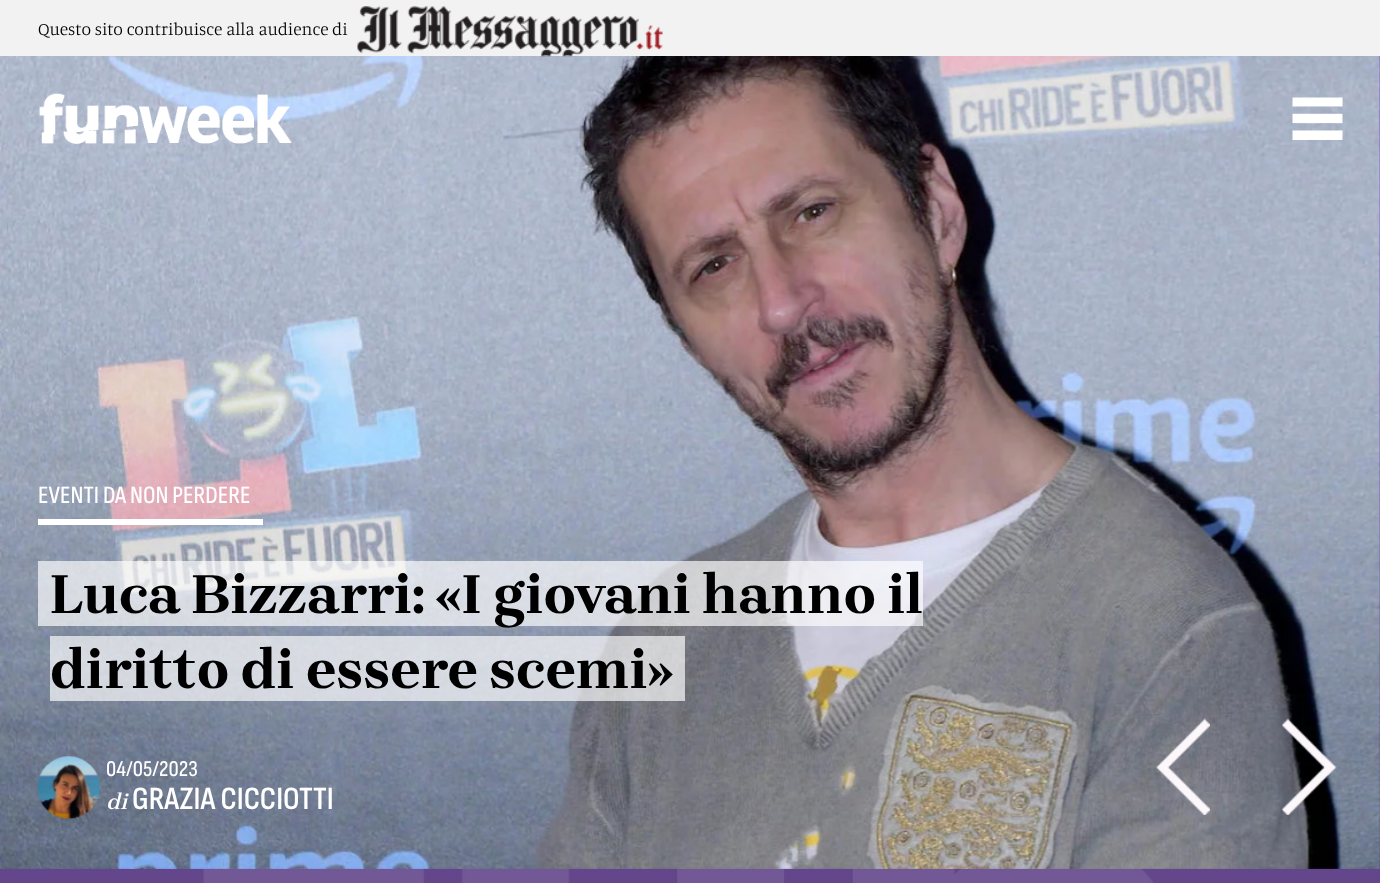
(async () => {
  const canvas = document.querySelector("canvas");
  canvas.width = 1380;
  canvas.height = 883;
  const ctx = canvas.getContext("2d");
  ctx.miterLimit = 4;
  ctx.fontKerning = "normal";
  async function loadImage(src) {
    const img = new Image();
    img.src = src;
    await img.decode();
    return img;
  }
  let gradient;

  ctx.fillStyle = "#ffffff";
  ctx.fillRect(0, 0, 1380, 883);
  ctx.fillStyle = "#f2f2f2";
  ctx.fillRect(0, 0, 1380, 56);
  gradient = ctx.createLinearGradient(690, 56, 690, 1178);
  gradient.addColorStop(0, "#6b00fe");
  gradient.addColorStop(1, "#606060");
  ctx.fillStyle = gradient;
  ctx.fillRect(0, 56, 1380, 827);
  ctx.drawImage(await loadImage("img/8.png"), 203, 867, 951, 16);
  ctx.drawImage(await loadImage("img/4.png"), 0, 56, 1380, 813);
  ctx.drawImage(await loadImage("img/1.png"), 357, 6, 306, 51);
  ctx.drawImage(await loadImage("img/2.png"), 39, 93, 253, 51);
  ctx.drawImage(await loadImage("img/3.png"), 1292, 97, 51, 43);
  for (const [x, y, w, h, color] of [
    [38, 519, 225, 6, "#ffffff"],
    [38, 561, 885, 65, "rgba(255, 255, 255, 0.67)"],
    [50, 636, 635, 65, "rgba(255, 255, 255, 0.67)"],
  ]) {
    ctx.fillStyle = color;
    ctx.fillRect(x, y, w, h);
  }
  ctx.drawImage(await loadImage("img/5.png"), 37, 756, 64, 64);
  ctx.drawImage(await loadImage("img/6.png"), 1156, 718, 54, 97);
  ctx.drawImage(await loadImage("img/7.png"), 1282, 718, 55, 97);
  ctx.font = "300 17.5px Manuale";
  ctx.fillStyle = "#000000";
  ctx.fillText("Questo sito contribuisce alla audience di", 38, 35);
  ctx.font = "500 25px Sofia Sans Condensed";
  ctx.fillStyle = "#ffffff";
  ctx.fillText("EVENTI DA NON PERDERE", 38, 503);
  ctx.font = "bold 56.25px 'Brygada 1918'";
  ctx.fillStyle = "#000000";
  ctx.fillText("Luca Bizzarri: «I giovani hanno il", 50, 613);
  ctx.fillText("diritto di essere scemi»", 50, 688);
  ctx.font = "500 22.5px Sofia Sans Condensed";
  ctx.fillStyle = "#ffffff";
  ctx.fillText("04/05/2023", 106, 776);
  ctx.font = "italic 600 22.5px 'Brygada 1918'";
  ctx.fillText("di", 106, 809);
  ctx.font = "600 32.5px Sofia Sans Condensed";
  ctx.fillText("GRAZIA CICCIOTTI", 132, 809);
})();
